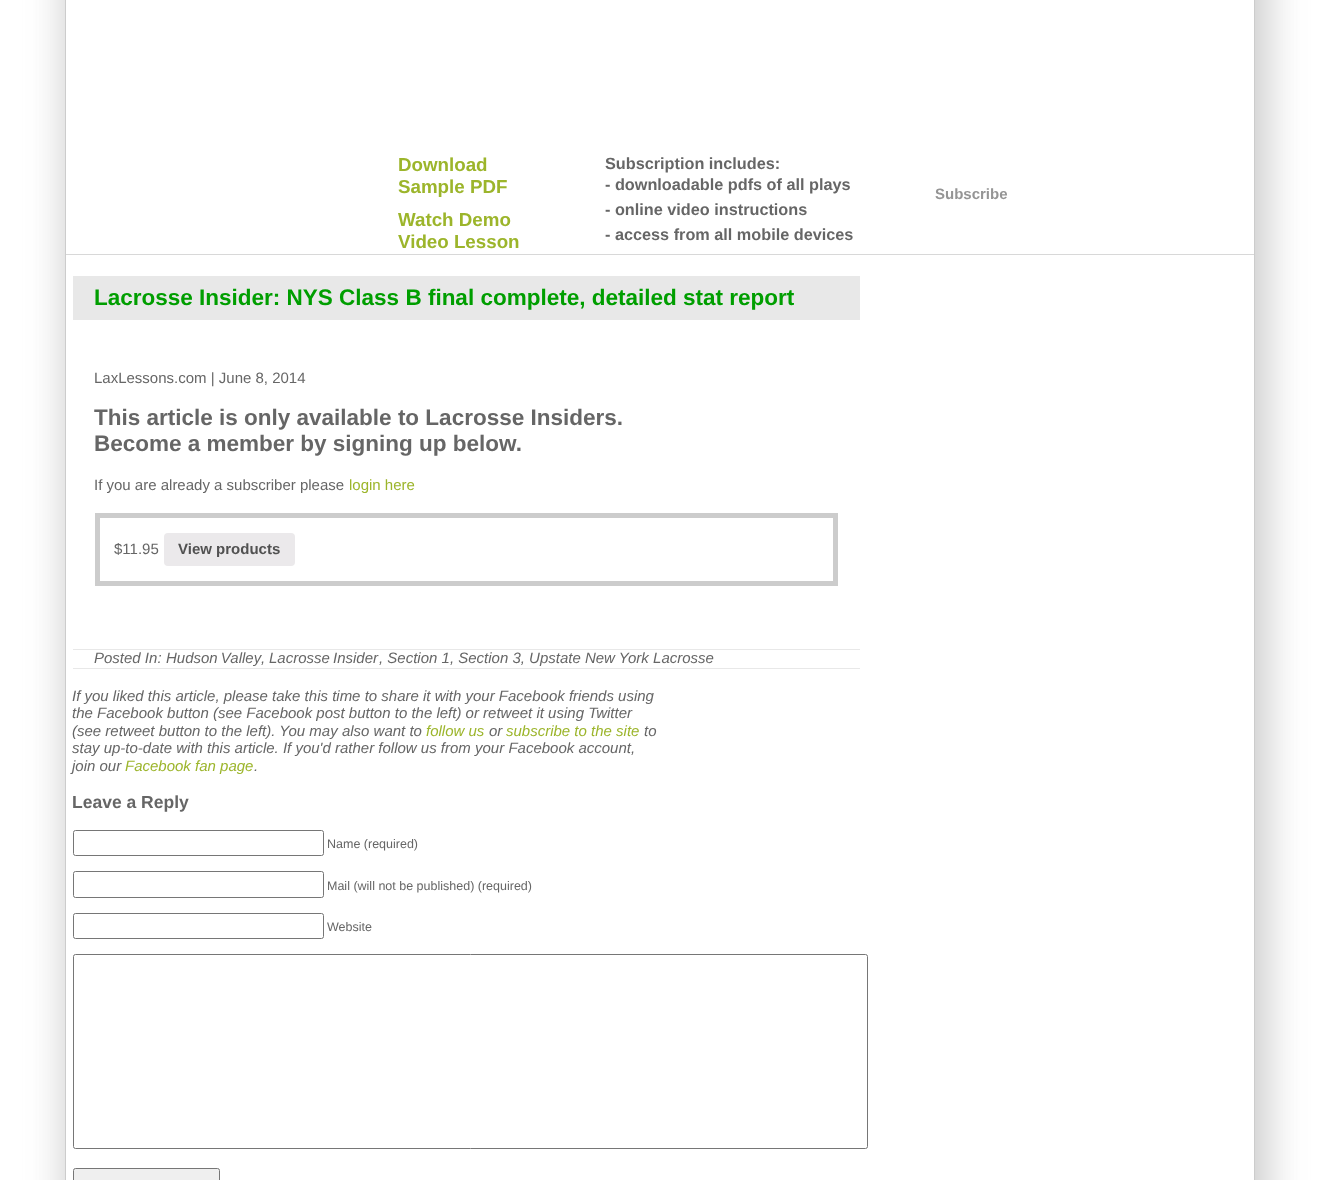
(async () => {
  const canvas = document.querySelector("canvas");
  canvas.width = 1318;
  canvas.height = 1180;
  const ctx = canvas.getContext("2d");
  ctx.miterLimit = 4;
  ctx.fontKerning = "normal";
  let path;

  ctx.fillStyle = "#ffffff";
  ctx.fillRect(0, 0, 1318, 1180);
  ctx.save();
  path = new Path2D("M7 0H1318V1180H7ZM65-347H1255V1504H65Z");
  ctx.clip(path, "evenodd");
  ctx.fillStyle = "#cccccc";
  ctx.filter = "blur(19px)";
  ctx.beginPath();
  ctx.rect(65, -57, 1203, 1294);
  ctx.fill();
  ctx.filter = "none";
  ctx.restore();
  ctx.strokeStyle = "#cccccc";
  ctx.strokeRect(65.5, -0.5, 1189, 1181);
  ctx.fillStyle = "#d8d8d8";
  ctx.fillRect(66, 254, 1188, 1);
  ctx.fillStyle = "#e8e8e8";
  ctx.fillRect(73, 276, 787, 44);
  ctx.lineWidth = 5;
  ctx.strokeRect(97.5, 515.5, 738, 68);
  ctx.fillStyle = "#ebe9eb";
  ctx.beginPath();
  ctx.roundRect(164, 533, 131, 33, 4);
  ctx.fill();
  ctx.fillStyle = "#e8e8e8";
  ctx.fillRect(73, 649, 787, 1);
  ctx.fillRect(73, 668, 787, 1);
  ctx.beginPath();
  ctx.roundRect(73.5, 830.5, 250, 25, 2);
  ctx.strokeStyle = "#767676";
  ctx.lineWidth = 1;
  ctx.stroke();
  ctx.beginPath();
  ctx.roundRect(73.5, 871.5, 250, 26, 2);
  ctx.stroke();
  ctx.beginPath();
  ctx.roundRect(73.5, 913.5, 250, 25, 2);
  ctx.stroke();
  ctx.beginPath();
  ctx.roundRect(73.5, 954.5, 794, 194, 2);
  ctx.stroke();
  ctx.fillStyle = "#efefef";
  ctx.beginPath();
  ctx.roundRect(73.5, 1168.5, 146, 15, 2);
  ctx.fill();
  ctx.stroke();
  ctx.font = "bold 18.75px Liberation Sans";
  ctx.fillStyle = "#9cb52b";
  for (const [text, x, y] of [
    ["Download", 398, 171],
    ["Sample PDF", 398, 193],
    ["Watch Demo", 398, 226],
    ["Video Lesson", 398, 248],
  ]) {
    ctx.fillText(text, x, y);
  }
  ctx.font = "bold 16.25px Liberation Sans";
  ctx.fillStyle = "#666666";
  for (const [text, x, y] of [
    ["Subscription includes:", 605, 169],
    ["- downloadable pdfs of all plays", 605, 190],
    ["- online video instructions", 605, 215],
    ["- access from all mobile devices", 605, 240],
  ]) {
    ctx.fillText(text, x, y);
  }
  ctx.font = "bold 15px Liberation Sans";
  ctx.fillStyle = "#959595";
  ctx.fillText("Subscribe", 935, 199);
  ctx.font = "bold 22.5px Liberation Sans";
  ctx.fillStyle = "#009e00";
  ctx.fillText("Lacrosse Insider: NYS Class B final complete, detailed stat report", 94, 305);
  ctx.font = "15px Liberation Sans";
  ctx.fillStyle = "#666666";
  ctx.fillText("LaxLessons.com | June 8, 2014", 94, 383);
  ctx.font = "bold 22.5px Liberation Sans";
  ctx.fillText("This article is only available to Lacrosse Insiders.", 94, 425);
  ctx.fillText("Become a member by signing up below.", 94, 451);
  ctx.font = "15px Liberation Sans";
  ctx.fillText("If you are already a subscriber please", 94, 490);
  ctx.fillStyle = "#9cb52b";
  ctx.fillText("login here", 349, 490);
  ctx.fillStyle = "#666666";
  ctx.fillText("$11.95", 114, 554);
  ctx.font = "bold 15px Liberation Sans";
  ctx.fillStyle = "#515151";
  ctx.fillText("View products", 178, 554);
  ctx.font = "italic 15px Liberation Sans";
  ctx.fillStyle = "#666666";
  ctx.fillText("Posted In:", 94, 663);
  ctx.wordSpacing = "-1px";
  ctx.fillText("Hudson Valley", 166, 663);
  ctx.fillText("Lacrosse Insider", 269, 663);
  ctx.wordSpacing = "0px";
  for (const [text, x, y] of [
    [", Section 1, Section 3, Upstate New York Lacrosse", 379, 663],
    [",", 261, 663],
    ["If you liked this article, please take this time to share it with your Facebook friends using", 72, 701],
    ["the Facebook button (see Facebook post button to the left) or retweet it using Twitter", 72, 718],
    ["(see retweet button to the left). You may also want to", 72, 736],
  ]) {
    ctx.fillText(text, x, y);
  }
  ctx.fillStyle = "#9cb52b";
  ctx.fillText("follow us", 426, 736);
  ctx.fillStyle = "#666666";
  ctx.fillText("or", 489, 736);
  ctx.fillStyle = "#9cb52b";
  ctx.fillText("subscribe to the site", 506, 736);
  ctx.fillStyle = "#666666";
  for (const [text, x, y] of [
    ["to", 644, 736],
    ["stay up-to-date with this article. If you'd rather follow us from your Facebook account,", 72, 753],
    ["join our", 72, 771],
  ]) {
    ctx.fillText(text, x, y);
  }
  ctx.fillStyle = "#9cb52b";
  ctx.fillText("Facebook fan page", 125, 771);
  ctx.fillStyle = "#666666";
  ctx.fillText(".", 254, 771);
  ctx.font = "bold 17.5px Liberation Sans";
  ctx.fillText("Leave a Reply", 72, 808);
  ctx.font = "12.5px Liberation Sans";
  for (const [text, x, y] of [
    ["Name (required)", 327, 848],
    ["Mail (will not be published) (required)", 327, 890],
    ["Website", 327, 931],
  ]) {
    ctx.fillText(text, x, y);
  }
})();
